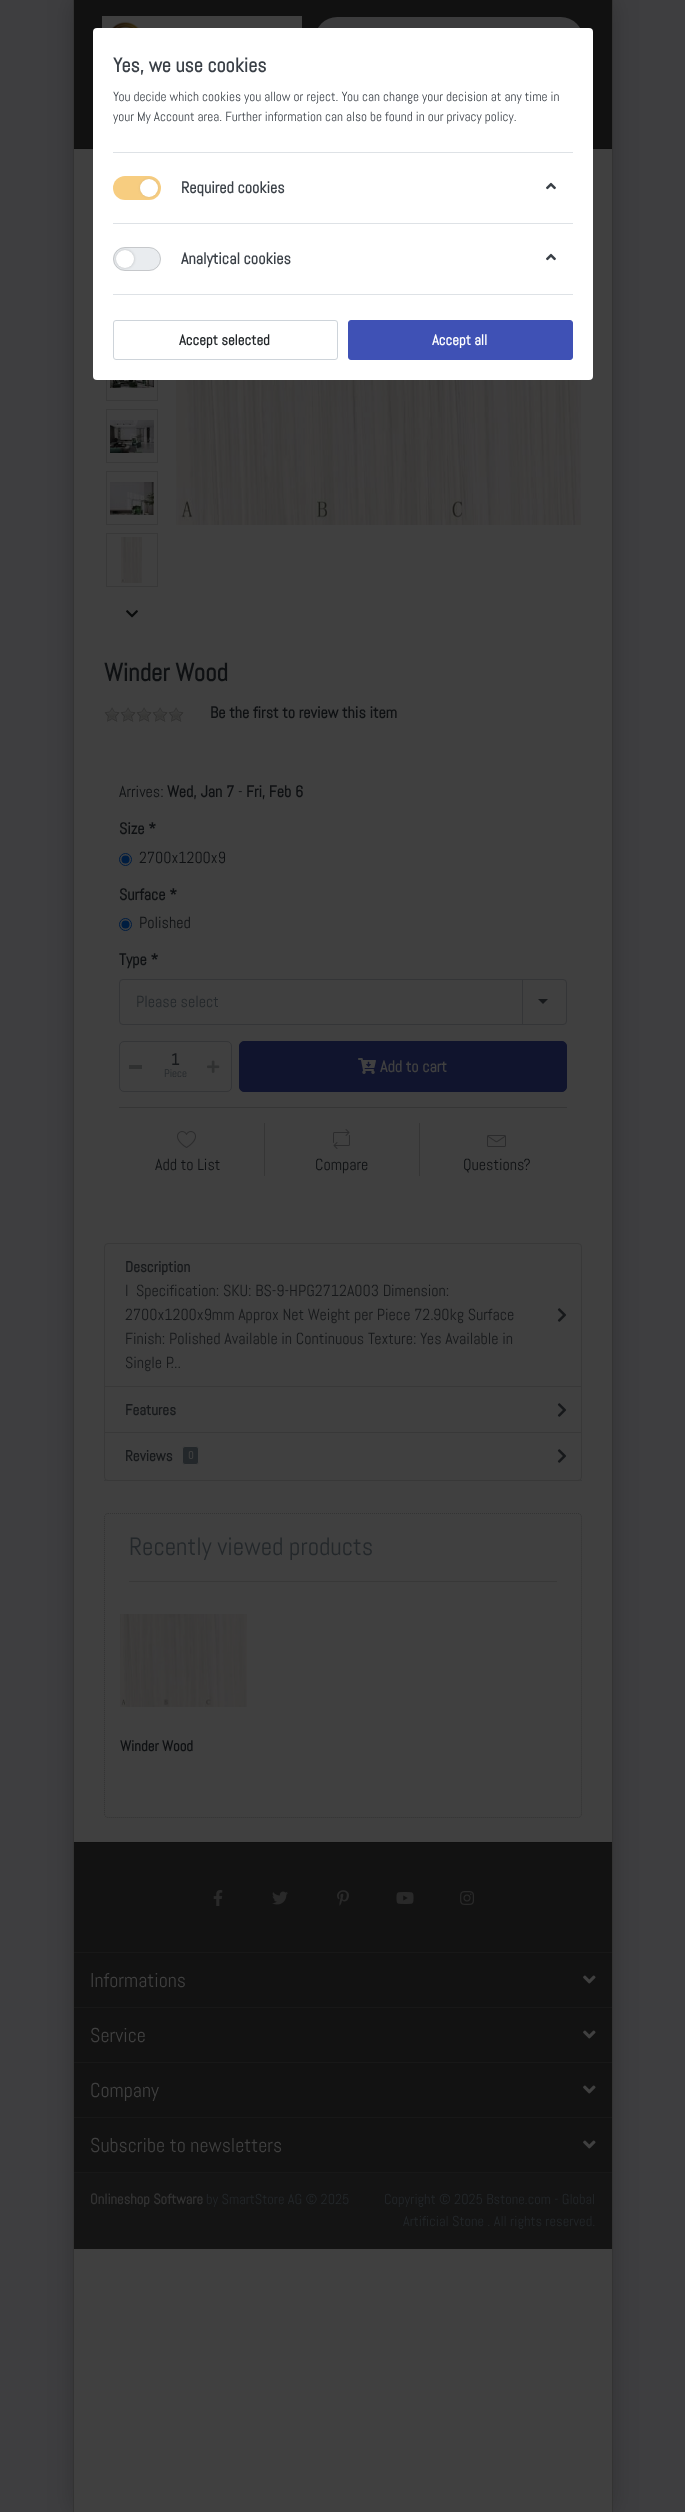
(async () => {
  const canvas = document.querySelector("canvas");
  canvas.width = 685;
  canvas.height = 2512;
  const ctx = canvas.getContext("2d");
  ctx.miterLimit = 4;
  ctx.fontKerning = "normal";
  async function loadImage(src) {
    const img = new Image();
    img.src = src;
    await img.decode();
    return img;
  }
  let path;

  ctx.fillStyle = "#3e3e40";
  ctx.fillRect(0, 0, 685, 2512);
  ctx.fillStyle = "rgba(0, 0, 0, 0.2)";
  ctx.filter = "blur(12px)";
  ctx.beginPath();
  ctx.rect(73, 0, 540, 2512);
  ctx.fill();
  ctx.filter = "none";
  for (const [x, y, w, h, color] of [
    [74, 149, 538, 2363, "#404040"],
    [74, 0, 538, 148, "#111111"],
    [74, 148, 538, 1, "#0f0f0f"],
  ]) {
    ctx.fillStyle = color;
    ctx.fillRect(x, y, w, h);
  }
  ctx.fillStyle = "#3c3c3d";
  ctx.beginPath();
  ctx.roundRect(315, 17, 268, 44, 22);
  ctx.fill();
  ctx.strokeStyle = "#383838";
  ctx.strokeRect(106.5, 347.5, 51, 53);
  ctx.fillStyle = "#ffffff";
  ctx.beginPath();
  ctx.roundRect(93, 28, 500, 352, 4);
  ctx.fill();
  ctx.fillStyle = "#dee2e6";
  ctx.fillRect(113, 152, 460, 1);
  ctx.fillRect(113, 223, 460, 1);
  ctx.fillStyle = "#f7cd80";
  ctx.beginPath();
  ctx.roundRect(113, 176, 48, 24, 12);
  ctx.fill();
  ctx.fillStyle = "rgba(128, 128, 128, 0.2)";
  ctx.filter = "blur(1.5px)";
  ctx.beginPath();
  ctx.roundRect(140, 179, 18, 18, 9);
  ctx.fill();
  ctx.filter = "none";
  ctx.fillStyle = "#ffffff";
  ctx.beginPath();
  ctx.arc(149, 188, 9, 0, Math.PI * 2);
  ctx.fill();
  ctx.drawImage(await loadImage("img/1.png"), 546, 182, 10, 8);
  ctx.fillStyle = "#dee2e6";
  ctx.fillRect(113, 294, 460, 1);
  ctx.fillStyle = "#e9ecef";
  ctx.beginPath();
  ctx.roundRect(113, 247, 48, 24, 12);
  ctx.fill();
  ctx.beginPath();
  ctx.roundRect(113.5, 247.5, 47, 23, 11.5);
  ctx.strokeStyle = "rgba(0, 0, 0, 0.15)";
  ctx.stroke();
  ctx.fillStyle = "rgba(0, 0, 0, 0.2)";
  ctx.filter = "blur(1.5px)";
  ctx.beginPath();
  ctx.roundRect(116, 250, 18, 18, 9);
  ctx.fill();
  ctx.filter = "none";
  ctx.fillStyle = "#ffffff";
  ctx.beginPath();
  ctx.arc(125, 259, 9, 0, Math.PI * 2);
  ctx.fill();
  ctx.drawImage(await loadImage("img/1.png"), 546, 253, 10, 8);
  ctx.beginPath();
  ctx.roundRect(113.5, 320.5, 224, 39, 2.5);
  ctx.strokeStyle = "#ced4da";
  ctx.stroke();
  ctx.fillStyle = "#3f51b5";
  ctx.beginPath();
  ctx.roundRect(348.5, 320.5, 224, 39, 2.5);
  ctx.fill();
  ctx.strokeStyle = "#3f51b5";
  ctx.stroke();
  ctx.fillStyle = "#333333";
  ctx.fillRect(612, 0, 1, 2512);
  ctx.fillRect(73, 0, 1, 2512);
  ctx.drawImage(await loadImage("img/2.png"), 102, 16, 200, 12);
  ctx.drawImage(await loadImage("img/3.png"), 110, 380, 44, 8);
  ctx.strokeStyle = "#383838";
  ctx.strokeRect(106.5, 409.5, 51, 53);
  ctx.drawImage(await loadImage("img/4.png"), 110, 420, 44, 33);
  ctx.strokeRect(106.5, 471.5, 51, 53);
  ctx.drawImage(await loadImage("img/5.png"), 110, 482, 44, 33);
  ctx.strokeRect(106.5, 533.5, 51, 53);
  ctx.drawImage(await loadImage("img/6.png"), 121, 537, 21, 46);
  ctx.drawImage(await loadImage("img/7.png"), 126, 610, 12, 8);
  ctx.drawImage(await loadImage("img/8.png"), 176, 380, 405, 145);
  ctx.drawImage(await loadImage("img/9.png"), 104, 707, 80, 15);
  ctx.beginPath();
  ctx.arc(125.5, 859.5, 6, 0, Math.PI * 2);
  ctx.strokeStyle = "#001d40";
  ctx.stroke();
  ctx.fillStyle = "#001d40";
  ctx.beginPath();
  ctx.arc(125.5, 859.5, 4, 0, Math.PI * 2);
  ctx.fill();
  ctx.beginPath();
  ctx.arc(125.5, 924.5, 6, 0, Math.PI * 2);
  ctx.stroke();
  ctx.beginPath();
  ctx.arc(125.5, 924.5, 4, 0, Math.PI * 2);
  ctx.fill();
  ctx.beginPath();
  ctx.roundRect(119.5, 979.5, 447, 45, 3.5);
  ctx.strokeStyle = "#343537";
  ctx.stroke();
  ctx.fillStyle = "#343537";
  ctx.fillRect(522, 980, 1, 44);
  ctx.fillStyle = "#16181a";
  path = new Path2D("M538 999H548L543 1004Z");
  ctx.fill(path);
  ctx.beginPath();
  ctx.roundRect(119.5, 1041.5, 112, 50, 4.5);
  ctx.stroke();
  ctx.fillStyle = "#2f3030";
  ctx.fillRect(129, 1065, 13, 4);
  ctx.drawImage(await loadImage("img/10.png"), 207, 1060, 13, 13);
  ctx.fillStyle = "#10142d";
  ctx.beginPath();
  ctx.roundRect(239.5, 1041.5, 327, 50, 4.5);
  ctx.fill();
  ctx.strokeStyle = "#10142d";
  ctx.stroke();
  ctx.drawImage(await loadImage("img/11.png"), 358, 1058, 18, 16);
  ctx.fillStyle = "#353535";
  ctx.fillRect(119, 1107, 448, 1);
  ctx.fillRect(264, 1123, 1, 53);
  ctx.drawImage(await loadImage("img/12.png"), 177, 1131, 19, 17);
  ctx.fillRect(419, 1123, 1, 53);
  ctx.drawImage(await loadImage("img/13.png"), 333, 1129, 17, 20);
  ctx.drawImage(await loadImage("img/14.png"), 487, 1135, 19, 12);
  ctx.fillStyle = "#38393a";
  ctx.fillRect(104, 1480, 478, 1);
  ctx.beginPath();
  ctx.roundRect(104.5, 1243.5, 477, 144, [3.5, 3.5, 0, 0]);
  ctx.strokeStyle = "#383838";
  ctx.stroke();
  ctx.drawImage(await loadImage("img/15.png"), 557, 1308, 10, 14);
  ctx.fillStyle = "#404040";
  ctx.fillRect(105, 1387, 476, 1);
  ctx.strokeRect(104.5, 1386.5, 477, 47);
  ctx.drawImage(await loadImage("img/15.png"), 557, 1403, 10, 14);
  ctx.beginPath();
  ctx.roundRect(104, 1432, 478, 49, [0, 0, 4, 4]);
  ctx.fill();
  ctx.beginPath();
  ctx.roundRect(104.5, 1432.5, 477, 48, [0, 0, 3.5, 3.5]);
  ctx.strokeStyle = "rgba(0, 0, 0, 0.12)";
  ctx.stroke();
  ctx.fillStyle = "#23272a";
  ctx.beginPath();
  ctx.roundRect(182.5, 1446.5, 16, 18, 2.5);
  ctx.fill();
  ctx.strokeStyle = "#404040";
  ctx.stroke();
  ctx.drawImage(await loadImage("img/15.png"), 557, 1449, 10, 14);
  path = new Path2D("M108 1513.5H578C580 1513.5 581.5 1515 581.5 1517V1814C581.5 1816 580 1817.5 578 1817.5H108C106 1817.5 104.5 1816 104.5 1814V1517C104.5 1515 106 1513.5 108 1513.5Z");
  ctx.strokeStyle = "#333333";
  ctx.setLineDash([1, 1]);
  ctx.stroke(path);
  ctx.fillStyle = "#383838";
  ctx.fillRect(129, 1581, 428, 1);
  ctx.drawImage(await loadImage("img/16.png"), 120, 1614, 127, 93);
  ctx.fillStyle = "#121212";
  ctx.fillRect(74, 1843, 538, 329);
  ctx.fillStyle = "#101010";
  ctx.fillRect(74, 1842, 538, 1);
  ctx.drawImage(await loadImage("img/17.png"), 213, 1890, 10, 16);
  ctx.drawImage(await loadImage("img/18.png"), 272, 1891, 16, 14);
  ctx.drawImage(await loadImage("img/19.png"), 337, 1890, 12, 16);
  ctx.drawImage(await loadImage("img/20.png"), 396, 1892, 18, 12);
  ctx.drawImage(await loadImage("img/21.png"), 460, 1891, 14, 14);
  ctx.fillStyle = "#181818";
  ctx.fillRect(74, 1952, 538, 1);
  ctx.fillRect(74, 2007, 538, 1);
  ctx.drawImage(await loadImage("img/22.png"), 583, 1975, 13, 9);
  ctx.fillRect(74, 2062, 538, 1);
  ctx.drawImage(await loadImage("img/22.png"), 583, 2030, 13, 9);
  ctx.fillRect(74, 2117, 538, 1);
  ctx.drawImage(await loadImage("img/22.png"), 583, 2085, 13, 9);
  ctx.fillRect(74, 2172, 538, 1);
  ctx.drawImage(await loadImage("img/22.png"), 583, 2140, 13, 9);
  ctx.fillStyle = "#141414";
  ctx.fillRect(74, 2173, 538, 76);
  ctx.font = "bold 20px Abel";
  ctx.fillStyle = "#393f46";
  ctx.fillText("Yes, we use cookies", 113, 72);
  ctx.font = "13.2px Abel";
  ctx.fillText("You decide which cookies you allow or reject. You can change your decision at any time in", 113, 101);
  ctx.fillText("your My Account area. Further information can also be found in our privacy policy.", 113, 121);
  ctx.font = "bold 16px Abel";
  ctx.fillText("Required cookies", 181, 193);
  ctx.fillText("Analytical cookies", 181, 264);
  ctx.font = "bold 14.75px Abel";
  ctx.fillStyle = "#23272a";
  ctx.fillText("Accept selected", 179, 345);
  ctx.fillStyle = "#ffffff";
  ctx.fillText("Accept all", 432, 345);
  ctx.font = "bold 25px Abel";
  ctx.fillStyle = "#0e1012";
  ctx.fillText("Winder Wood", 104, 681);
  ctx.font = "bold 16px Abel";
  ctx.fillText("Be the first to review this item", 210, 718);
  ctx.font = "16px Abel";
  ctx.fillText("Arrives:", 119, 797);
  ctx.font = "bold 16px Abel";
  ctx.fillText("Wed, Jan 7", 167, 797);
  ctx.font = "16px Abel";
  ctx.fillText("-", 238, 797);
  ctx.font = "bold 16px Abel";
  ctx.fillText("Fri, Feb 6", 246, 797);
  ctx.fillText("Size *", 119, 834);
  ctx.font = "16px Abel";
  ctx.fillText("2700x1200x9", 139, 863);
  ctx.font = "bold 16px Abel";
  ctx.fillText("Surface *", 119, 900);
  ctx.font = "16px Abel";
  ctx.fillText("Polished", 139, 928);
  ctx.font = "bold 16px Abel";
  ctx.fillText("Type *", 119, 965);
  ctx.font = "16px Abel";
  ctx.fillStyle = "#23272a";
  ctx.fillText("Please select", 136, 1007);
  ctx.font = "bold 16px Abel";
  ctx.fillStyle = "#16181a";
  ctx.fillText("1", 171, 1065);
  ctx.font = "11px Abel";
  ctx.fillStyle = "#23272a";
  ctx.fillText("Piece", 164, 1077);
  ctx.font = "bold 16px Abel";
  ctx.fillStyle = "#404040";
  ctx.fillText("Add to cart", 380, 1072);
  ctx.font = "16px Abel";
  ctx.fillStyle = "#0e1012";
  for (const [text, x, y] of [
    ["Add to List", 155, 1170],
    ["Compare", 315, 1170],
    ["Questions?", 463, 1170],
  ]) {
    ctx.fillText(text, x, y);
  }
  ctx.font = "bold 15px Abel";
  ctx.fillStyle = "#16181a";
  ctx.fillText("Description", 125, 1272);
  ctx.font = "16px Abel";
  for (const [text, x, y] of [
    ["l  Specification: SKU: BS-9-HPG2712A003 Dimension:", 125, 1296],
    ["2700x1200x9mm Approx Net Weight per Piece 72.90kg Surface", 125, 1320],
    ["Finish: Polished Available in Continuous Texture: Yes Available in", 125, 1344],
    ["Single P...", 125, 1368],
  ]) {
    ctx.fillText(text, x, y);
  }
  ctx.font = "bold 15px Abel";
  ctx.fillText("Features", 125, 1415);
  ctx.fillText("Reviews", 125, 1461);
  ctx.font = "bold 11px Abel";
  ctx.fillStyle = "#404040";
  ctx.fillText("0", 188, 1459);
  ctx.font = "25px Abel";
  ctx.fillStyle = "#23272a";
  ctx.fillText("Recently viewed products", 129, 1555);
  ctx.font = "bold 14.75px Abel";
  ctx.fillStyle = "#0e1012";
  ctx.fillText("Winder Wood", 120, 1751);
  ctx.font = "20px Abel";
  ctx.fillStyle = "#404040";
  for (const [text, x, y] of [
    ["Informations", 90, 1987],
    ["Service", 90, 2042],
    ["Company", 90, 2097],
    ["Subscribe to newsletters", 90, 2152],
  ]) {
    ctx.fillText(text, x, y);
  }
  ctx.font = "bold 14.4px Abel";
  ctx.fillStyle = "#333333";
  ctx.fillText("Onlineshop Software", 90, 2204);
  ctx.font = "14.4px Abel";
  ctx.fillStyle = "#23272a";
  for (const [text, x, y] of [
    ["by SmartStore AG © 2025", 206, 2204],
    ["Copyright © 2025 Bstone.com - Global", 384, 2204],
    ["Artificial Stone . All rights reserved.", 403, 2226],
  ]) {
    ctx.fillText(text, x, y);
  }
})();
